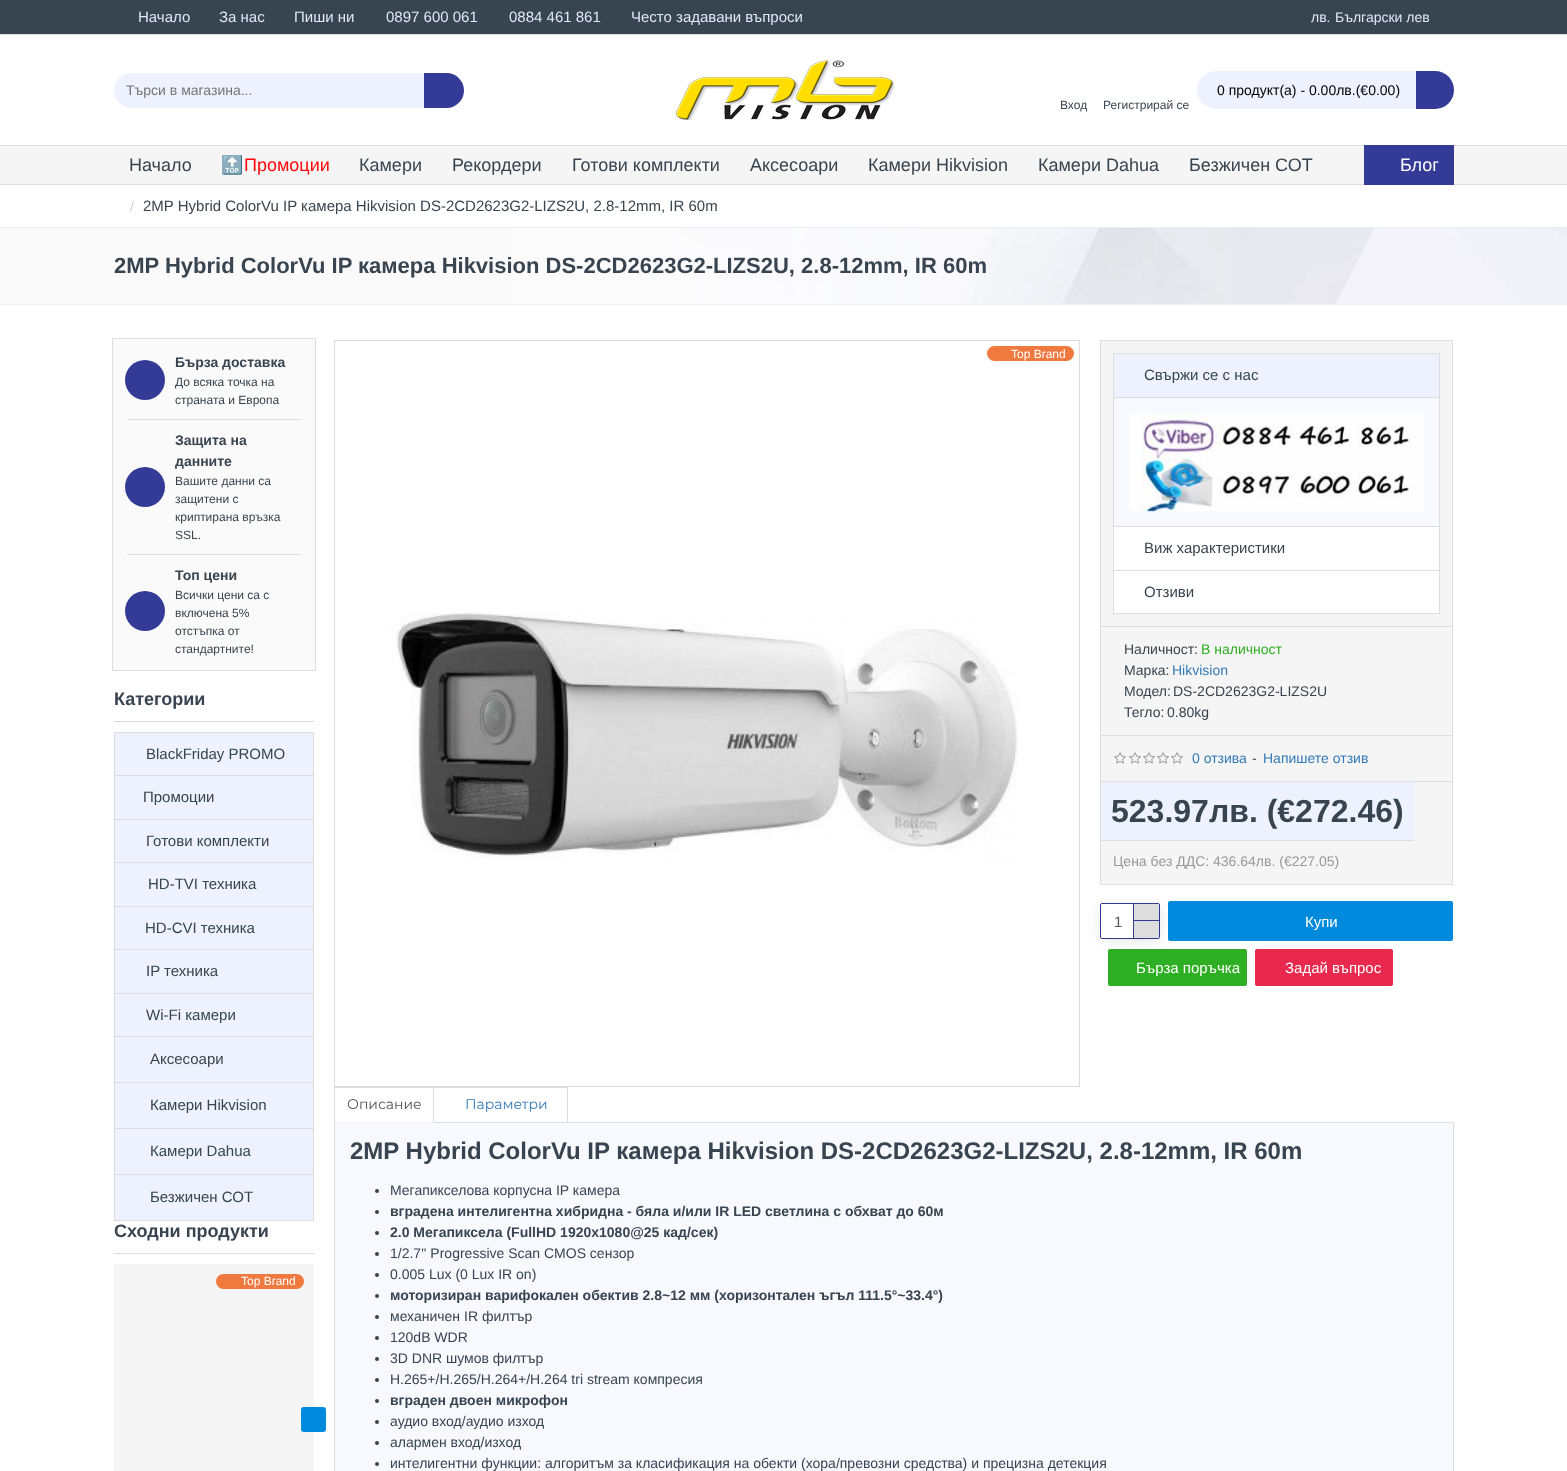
(async () => {
  const canvas = document.querySelector("canvas");
  canvas.width = 1567;
  canvas.height = 1471;
  const ctx = canvas.getContext("2d");
  ctx.miterLimit = 4;
  ctx.fontKerning = "normal";
  async function loadImage(src) {
    const img = new Image();
    img.src = src;
    await img.decode();
    return img;
  }

  ctx.fillStyle = "#ffffff";
  ctx.fillRect(0, 0, 1567, 1471);
  ctx.fillStyle = "#38444f";
  ctx.fillRect(0, 0, 1567, 34);
  ctx.fillStyle = "#dddddd";
  ctx.fillRect(0, 34, 1567, 1);
  ctx.fillStyle = "#edf2fe";
  ctx.beginPath();
  ctx.roundRect(114, 73, 310, 35, [17.5, 0, 0, 17.5]);
  ctx.fill();
  ctx.fillStyle = "#343b97";
  ctx.beginPath();
  ctx.roundRect(424, 73, 40, 35, [0, 17.5, 17.5, 0]);
  ctx.fill();
  ctx.drawImage(await loadImage("img/1.png"), 675, 60, 219, 60);
  ctx.fillStyle = "#edf2fe";
  ctx.beginPath();
  ctx.roundRect(1197, 71, 257, 38, 19);
  ctx.fill();
  ctx.fillStyle = "#343b97";
  ctx.beginPath();
  ctx.roundRect(1416, 71, 38, 38, [0, 19, 19, 0]);
  ctx.fill();
  for (const [x, y, w, h, color] of [
    [0, 146, 1567, 38, "#f5f5f5"],
    [0, 145, 1567, 1, "#dddddd"],
    [0, 184, 1567, 1, "#dddddd"],
    [1364, 145, 90, 40, "#343b97"],
    [0, 227, 1567, 1, "#eeeeee"],
  ]) {
    ctx.fillStyle = color;
    ctx.fillRect(x, y, w, h);
  }
  ctx.drawImage(await loadImage("img/2.png"), 0, 228, 1567, 76);
  ctx.fillRect(0, 304, 1567, 1);
  ctx.fillStyle = "#fafafa";
  ctx.beginPath();
  ctx.rect(112.5, 338.5, 203, 332);
  ctx.fill();
  ctx.strokeStyle = "#dddddd";
  ctx.stroke();
  ctx.fillStyle = "#dddddd";
  ctx.fillRect(127, 419, 174, 1);
  ctx.fillStyle = "#343b97";
  ctx.beginPath();
  ctx.arc(145, 380, 20, 0, Math.PI * 2);
  ctx.fill();
  ctx.fillStyle = "#dddddd";
  ctx.fillRect(127, 554, 174, 1);
  ctx.fillStyle = "#343b97";
  ctx.beginPath();
  ctx.arc(145, 487, 20, 0, Math.PI * 2);
  ctx.fill();
  ctx.beginPath();
  ctx.arc(145, 611, 20, 0, Math.PI * 2);
  ctx.fill();
  ctx.fillStyle = "#dddddd";
  ctx.fillRect(114, 721, 200, 1);
  ctx.strokeRect(114.5, 732.5, 199, 488);
  for (const [x, y, w, h, color] of [
    [115, 733, 198, 42, "#edf2fe"],
    [115, 776, 198, 43, "#edf2fe"],
    [115, 775, 198, 1, "#dddddd"],
    [115, 820, 198, 42, "#edf2fe"],
    [115, 819, 198, 1, "#dddddd"],
    [115, 863, 198, 43, "#edf2fe"],
    [115, 862, 198, 1, "#dddddd"],
    [115, 907, 198, 42, "#edf2fe"],
    [115, 906, 198, 1, "#dddddd"],
    [115, 950, 198, 43, "#edf2fe"],
    [115, 949, 198, 1, "#dddddd"],
    [115, 994, 198, 42, "#edf2fe"],
    [115, 993, 198, 1, "#dddddd"],
    [115, 1037, 198, 45, "#edf2fe"],
    [115, 1036, 198, 1, "#dddddd"],
    [115, 1083, 198, 45, "#edf2fe"],
    [115, 1082, 198, 1, "#dddddd"],
    [115, 1129, 198, 45, "#edf2fe"],
    [115, 1128, 198, 1, "#dddddd"],
    [115, 1175, 198, 45, "#edf2fe"],
    [115, 1174, 198, 1, "#dddddd"],
    [114, 1253, 200, 1, "#dddddd"],
    [114, 1264, 200, 207, "#f5f5f5"],
  ]) {
    ctx.fillStyle = color;
    ctx.fillRect(x, y, w, h);
  }
  ctx.fillStyle = "#f0793f";
  ctx.beginPath();
  ctx.roundRect(216, 1274, 88, 15, 7.5);
  ctx.fill();
  ctx.fillStyle = "#008add";
  ctx.beginPath();
  ctx.roundRect(301, 1407, 25, 25, 3);
  ctx.fill();
  ctx.strokeRect(334.5, 340.5, 745, 746);
  ctx.fillStyle = "#f0793f";
  ctx.beginPath();
  ctx.roundRect(987, 346, 87, 15, 7.5);
  ctx.fill();
  ctx.drawImage(await loadImage("img/3.png"), 391, 612, 627, 249);
  ctx.fillStyle = "#f5f5f5";
  ctx.beginPath();
  ctx.rect(1100.5, 340.5, 352, 286);
  ctx.fill();
  ctx.stroke();
  ctx.strokeRect(1113.5, 353.5, 326, 260);
  for (const [x, y, w, h, color] of [
    [1114, 354, 325, 43, "#edf2fe"],
    [1114, 397, 325, 1, "#dddddd"],
    [1114, 398, 325, 128, "#f7f9ff"],
  ]) {
    ctx.fillStyle = color;
    ctx.fillRect(x, y, w, h);
  }
  ctx.drawImage(await loadImage("img/4.png"), 1129, 413, 295, 99);
  for (const [x, y, w, h, color] of [
    [1114, 527, 325, 43, "#ffffff"],
    [1114, 526, 325, 1, "#dddddd"],
    [1114, 570, 325, 1, "#dddddd"],
    [1114, 571, 325, 42, "#ffffff"],
  ]) {
    ctx.fillStyle = color;
    ctx.fillRect(x, y, w, h);
  }
  ctx.fillStyle = "#f5f5f5";
  ctx.beginPath();
  ctx.rect(1100.5, 735.5, 352, 46);
  ctx.fill();
  ctx.stroke();
  ctx.beginPath();
  ctx.rect(1100.5, 626.5, 352, 109);
  ctx.fill();
  ctx.stroke();
  ctx.drawImage(await loadImage("img/5.png"), 1114, 752, 12, 12);
  ctx.drawImage(await loadImage("img/5.png"), 1129, 752, 12, 12);
  ctx.drawImage(await loadImage("img/5.png"), 1143, 752, 12, 12);
  ctx.drawImage(await loadImage("img/5.png"), 1157, 752, 12, 12);
  ctx.drawImage(await loadImage("img/5.png"), 1171, 752, 12, 12);
  ctx.beginPath();
  ctx.roundRect(1100.5, 903.5, 59, 35, 1.5);
  ctx.strokeStyle = "#343b97";
  ctx.stroke();
  ctx.fillStyle = "rgba(0, 0, 0, 0.15)";
  ctx.filter = "blur(7.5px)";
  ctx.beginPath();
  ctx.rect(1103, 908, 54, 30);
  ctx.fill();
  ctx.filter = "none";
  ctx.fillStyle = "#f5f5f5";
  ctx.beginPath();
  ctx.rect(1100.5, 781.5, 352, 103);
  ctx.fill();
  ctx.strokeStyle = "#dddddd";
  ctx.stroke();
  ctx.fillStyle = "#edf2fe";
  ctx.fillRect(1101, 782, 313, 58);
  ctx.fillStyle = "#dddddd";
  ctx.fillRect(1101, 840, 313, 1);
  ctx.fillStyle = "#ffffff";
  ctx.beginPath();
  ctx.roundRect(1101, 904, 58, 34, 2);
  ctx.fill();
  for (const [x, y, w, h, color] of [
    [1133, 904, 1, 34, "#343b97"],
    [1134, 904, 25, 16, "#dddddd"],
    [1134, 920, 25, 1, "#343b97"],
    [1134, 921, 25, 17, "#dddddd"],
  ]) {
    ctx.fillStyle = color;
    ctx.fillRect(x, y, w, h);
  }
  ctx.fillStyle = "#008add";
  ctx.beginPath();
  ctx.roundRect(1168, 901, 285, 40, 2);
  ctx.fill();
  ctx.fillStyle = "#2eaf23";
  ctx.beginPath();
  ctx.roundRect(1108, 949, 139, 37, 2);
  ctx.fill();
  ctx.fillStyle = "#e8284d";
  ctx.beginPath();
  ctx.roundRect(1255, 949, 138, 37, 2);
  ctx.fill();
  for (const [x, y, w, h, color] of [
    [334, 1087, 1, 36, "#dddddd"],
    [335, 1087, 233, 1, "#dddddd"],
    [567, 1087, 1, 36, "#dddddd"],
  ]) {
    ctx.fillStyle = color;
    ctx.fillRect(x, y, w, h);
  }
  ctx.fillStyle = "#f7f9ff";
  ctx.beginPath();
  ctx.rect(334.5, 1122.5, 1119, 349);
  ctx.fill();
  ctx.stroke();
  ctx.fillStyle = "#dddddd";
  ctx.fillRect(433, 1087, 1, 36);
  ctx.fillStyle = "#edf2fe";
  ctx.fillRect(335, 1122, 99, 1);
  ctx.fillStyle = "#38444f";
  ctx.beginPath();
  ctx.arc(377, 1191, 2, 0, Math.PI * 2);
  ctx.fill();
  ctx.beginPath();
  ctx.arc(377, 1212, 2, 0, Math.PI * 2);
  ctx.fill();
  ctx.beginPath();
  ctx.arc(377, 1233, 2, 0, Math.PI * 2);
  ctx.fill();
  ctx.beginPath();
  ctx.arc(377, 1254, 2, 0, Math.PI * 2);
  ctx.fill();
  ctx.beginPath();
  ctx.arc(377, 1275, 2, 0, Math.PI * 2);
  ctx.fill();
  ctx.beginPath();
  ctx.arc(377, 1296, 2, 0, Math.PI * 2);
  ctx.fill();
  ctx.beginPath();
  ctx.arc(377, 1317, 2, 0, Math.PI * 2);
  ctx.fill();
  ctx.beginPath();
  ctx.arc(377, 1338, 2, 0, Math.PI * 2);
  ctx.fill();
  ctx.beginPath();
  ctx.arc(377, 1359, 2, 0, Math.PI * 2);
  ctx.fill();
  ctx.beginPath();
  ctx.arc(377, 1380, 2, 0, Math.PI * 2);
  ctx.fill();
  ctx.beginPath();
  ctx.arc(377, 1401, 2, 0, Math.PI * 2);
  ctx.fill();
  ctx.beginPath();
  ctx.arc(377, 1422, 2, 0, Math.PI * 2);
  ctx.fill();
  ctx.beginPath();
  ctx.arc(377, 1443, 2, 0, Math.PI * 2);
  ctx.fill();
  ctx.beginPath();
  ctx.arc(377, 1464, 2, 0, Math.PI * 2);
  ctx.fill();
  ctx.font = "15px Liberation Sans";
  ctx.fillStyle = "#dfe7f7";
  for (const [text, x, y] of [
    ["Начало", 138, 22],
    ["За нас", 219, 22],
    ["Пиши ни", 294, 22],
    ["0897 600 061", 386, 22],
    ["0884 461 861", 509, 22],
    ["Често задавани въпроси", 631, 22],
  ]) {
    ctx.fillText(text, x, y);
  }
  ctx.font = "14px Liberation Sans";
  ctx.fillText("лв.", 1311, 22);
  ctx.fillText("Български лев", 1335, 22);
  ctx.fillStyle = "#757575";
  ctx.fillText("Търси в магазина...", 126, 95);
  ctx.fillStyle = "#000000";
  ctx.fillText("0 продукт(а) - 0.00лв.(€0.00)", 1217, 95);
  ctx.font = "12px Liberation Sans";
  ctx.fillStyle = "#38444f";
  ctx.fillText("Вход", 1060, 109);
  ctx.fillText("Регистрирай се", 1103, 109);
  ctx.font = "18px Liberation Sans";
  ctx.fillText("Начало", 129, 171);
  ctx.font = "18px Noto Color Emoji";
  ctx.fillStyle = "#ff0808";
  ctx.fillText("🔝", 221, 171);
  ctx.font = "18px Liberation Sans";
  ctx.fillText("Промоции", 244, 171);
  ctx.fillStyle = "#38444f";
  for (const [text, x, y] of [
    ["Камери", 359, 171],
    ["Рекордери", 452, 171],
    ["Готови комплекти", 572, 171],
    ["Аксесоари", 750, 171],
    ["Камери Hikvision", 868, 171],
    ["Камери Dahua", 1038, 171],
    ["Безжичен СОТ", 1189, 171],
  ]) {
    ctx.fillText(text, x, y);
  }
  ctx.fillStyle = "#ffffff";
  ctx.fillText("Блог", 1400, 171);
  ctx.font = "14px Liberation Sans";
  ctx.fillStyle = "#cccccc";
  ctx.fillText("/", 130, 211);
  ctx.font = "15px Liberation Sans";
  ctx.fillStyle = "#38444f";
  ctx.fillText("2MP Hybrid ColorVu IP камера Hikvision DS-2CD2623G2-LIZS2U, 2.8-12mm, IR 60m", 143, 211);
  ctx.font = "bold 22px Liberation Sans";
  ctx.fillText("2MP Hybrid ColorVu IP камера Hikvision DS-2CD2623G2-LIZS2U, 2.8-12mm, IR 60m", 114, 273);
  ctx.font = "bold 14px Liberation Sans";
  ctx.fillText("Бърза доставка", 175, 367);
  ctx.font = "12px Liberation Sans";
  ctx.fillText("До всяка точка на", 175, 386);
  ctx.fillText("страната и Европа", 175, 404);
  ctx.font = "bold 14px Liberation Sans";
  ctx.fillText("Защита на", 175, 445);
  ctx.fillText("данните", 175, 466);
  ctx.font = "12px Liberation Sans";
  for (const [text, x, y] of [
    ["Вашите данни са", 175, 485],
    ["защитени с", 175, 503],
    ["криптирана връзка", 175, 521],
    ["SSL.", 175, 539],
  ]) {
    ctx.fillText(text, x, y);
  }
  ctx.font = "bold 14px Liberation Sans";
  ctx.fillText("Топ цени", 175, 580);
  ctx.font = "12px Liberation Sans";
  for (const [text, x, y] of [
    ["Всички цени са с", 175, 599],
    ["включена 5%", 175, 617],
    ["отстъпка от", 175, 635],
    ["стандартните!", 175, 653],
  ]) {
    ctx.fillText(text, x, y);
  }
  ctx.font = "bold 18px Liberation Sans";
  ctx.fillText("Категории", 114, 705);
  ctx.font = "15px Liberation Sans";
  for (const [text, x, y] of [
    ["BlackFriday PROMO", 146, 759],
    ["Промоции", 143, 802],
    ["Готови комплекти", 146, 846],
    ["HD-TVI техника", 148, 889],
    ["HD-CVI техника", 145, 933],
    ["IP техника", 146, 976],
    ["Wi-Fi камери", 146, 1020],
    ["Аксесоари", 150, 1064],
    ["Камери Hikvision", 150, 1110],
    ["Камери Dahua", 150, 1156],
    ["Безжичен СОТ", 150, 1202],
  ]) {
    ctx.fillText(text, x, y);
  }
  ctx.font = "bold 18px Liberation Sans";
  ctx.fillText("Сходни продукти", 114, 1237);
  ctx.font = "12px Liberation Sans";
  ctx.fillStyle = "#ffffff";
  ctx.fillText("Top Brand", 241, 1285);
  ctx.fillText("Top Brand", 1011, 358);
  ctx.font = "15px Liberation Sans";
  ctx.fillStyle = "#38444f";
  for (const [text, x, y] of [
    ["Свържи се с нас", 1144, 380],
    ["Виж характеристики", 1144, 553],
    ["Отзиви", 1144, 597],
  ]) {
    ctx.fillText(text, x, y);
  }
  ctx.font = "14px Liberation Sans";
  ctx.fillText("Наличност:", 1124, 654);
  ctx.fillStyle = "#2eaf23";
  ctx.fillText("В наличност", 1201, 654);
  ctx.fillStyle = "#38444f";
  ctx.fillText("Марка:", 1124, 675);
  ctx.fillStyle = "#337ab7";
  ctx.fillText("Hikvision", 1172, 675);
  ctx.fillStyle = "#38444f";
  for (const [text, x, y] of [
    ["Модел:", 1124, 696],
    ["DS-2CD2623G2-LIZS2U", 1173, 696],
    ["Тегло:", 1124, 717],
    ["0.80kg", 1167, 717],
  ]) {
    ctx.fillText(text, x, y);
  }
  ctx.fillStyle = "#337ab7";
  ctx.fillText("0 отзива", 1192, 763);
  ctx.fillStyle = "#38444f";
  ctx.fillText("-", 1252, 763);
  ctx.fillStyle = "#337ab7";
  ctx.fillText("Напишете отзив", 1263, 763);
  ctx.font = "bold 32px Liberation Sans";
  ctx.fillStyle = "#38444f";
  ctx.fillText("523.97лв. (€272.46)", 1111, 822);
  ctx.font = "14px Liberation Sans";
  ctx.fillStyle = "#999999";
  ctx.fillText("Цена без ДДС: 436.64лв. (€227.05)", 1113, 866);
  ctx.font = "15px Liberation Sans";
  ctx.fillStyle = "#555555";
  ctx.fillText("1", 1114, 927);
  ctx.fillStyle = "#ffffff";
  for (const [text, x, y] of [
    ["Купи", 1305, 927],
    ["Бърза поръчка", 1136, 973],
    ["Задай въпрос", 1285, 973],
  ]) {
    ctx.fillText(text, x, y);
  }
  ctx.font = "14px Montserrat";
  ctx.fillStyle = "#555555";
  ctx.fillText("Описание", 347, 1109);
  ctx.fillStyle = "#337ab7";
  ctx.fillText("Параметри", 465, 1109);
  ctx.font = "bold 24px Liberation Sans";
  ctx.fillStyle = "#38444f";
  ctx.fillText("2MP Hybrid ColorVu IP камера Hikvision DS-2CD2623G2-LIZS2U, 2.8-12mm, IR 60m", 350, 1159);
  ctx.font = "14px Liberation Sans";
  ctx.fillText("Мегапикселова корпусна IP камера", 390, 1195);
  ctx.font = "bold 14px Liberation Sans";
  ctx.fillText("вградена интелигентна хибридна - бяла и/или IR LED светлина с обхват до 60м", 390, 1216);
  ctx.fillText("2.0 Мегапиксела (FullHD 1920x1080@25 кад/сек)", 390, 1237);
  ctx.font = "14px Liberation Sans";
  ctx.fillText("1/2.7'' Progressive Scan CMOS сензор", 390, 1258);
  ctx.fillText("0.005 Lux (0 Lux IR on)", 390, 1279);
  ctx.font = "bold 14px Liberation Sans";
  ctx.fillText("моторизиран варифокален обектив 2.8~12 мм (хоризонтален ъгъл 111.5°~33.4°)", 390, 1300);
  ctx.font = "14px Liberation Sans";
  for (const [text, x, y] of [
    ["механичен IR филтър", 390, 1321],
    ["120dB WDR", 390, 1342],
    ["3D DNR шумов филтър", 390, 1363],
    ["H.265+/H.265/H.264+/H.264 tri stream компресия", 390, 1384],
  ]) {
    ctx.fillText(text, x, y);
  }
  ctx.font = "bold 14px Liberation Sans";
  ctx.fillText("вграден двоен микрофон", 390, 1405);
  ctx.font = "14px Liberation Sans";
  for (const [text, x, y] of [
    ["аудио вход/аудио изход", 390, 1426],
    ["алармен вход/изход", 390, 1447],
    ["интелигентни функции: алгоритъм за класификация на обекти (хора/превозни средства) и прецизна детекция", 390, 1468],
  ]) {
    ctx.fillText(text, x, y);
  }
})();
